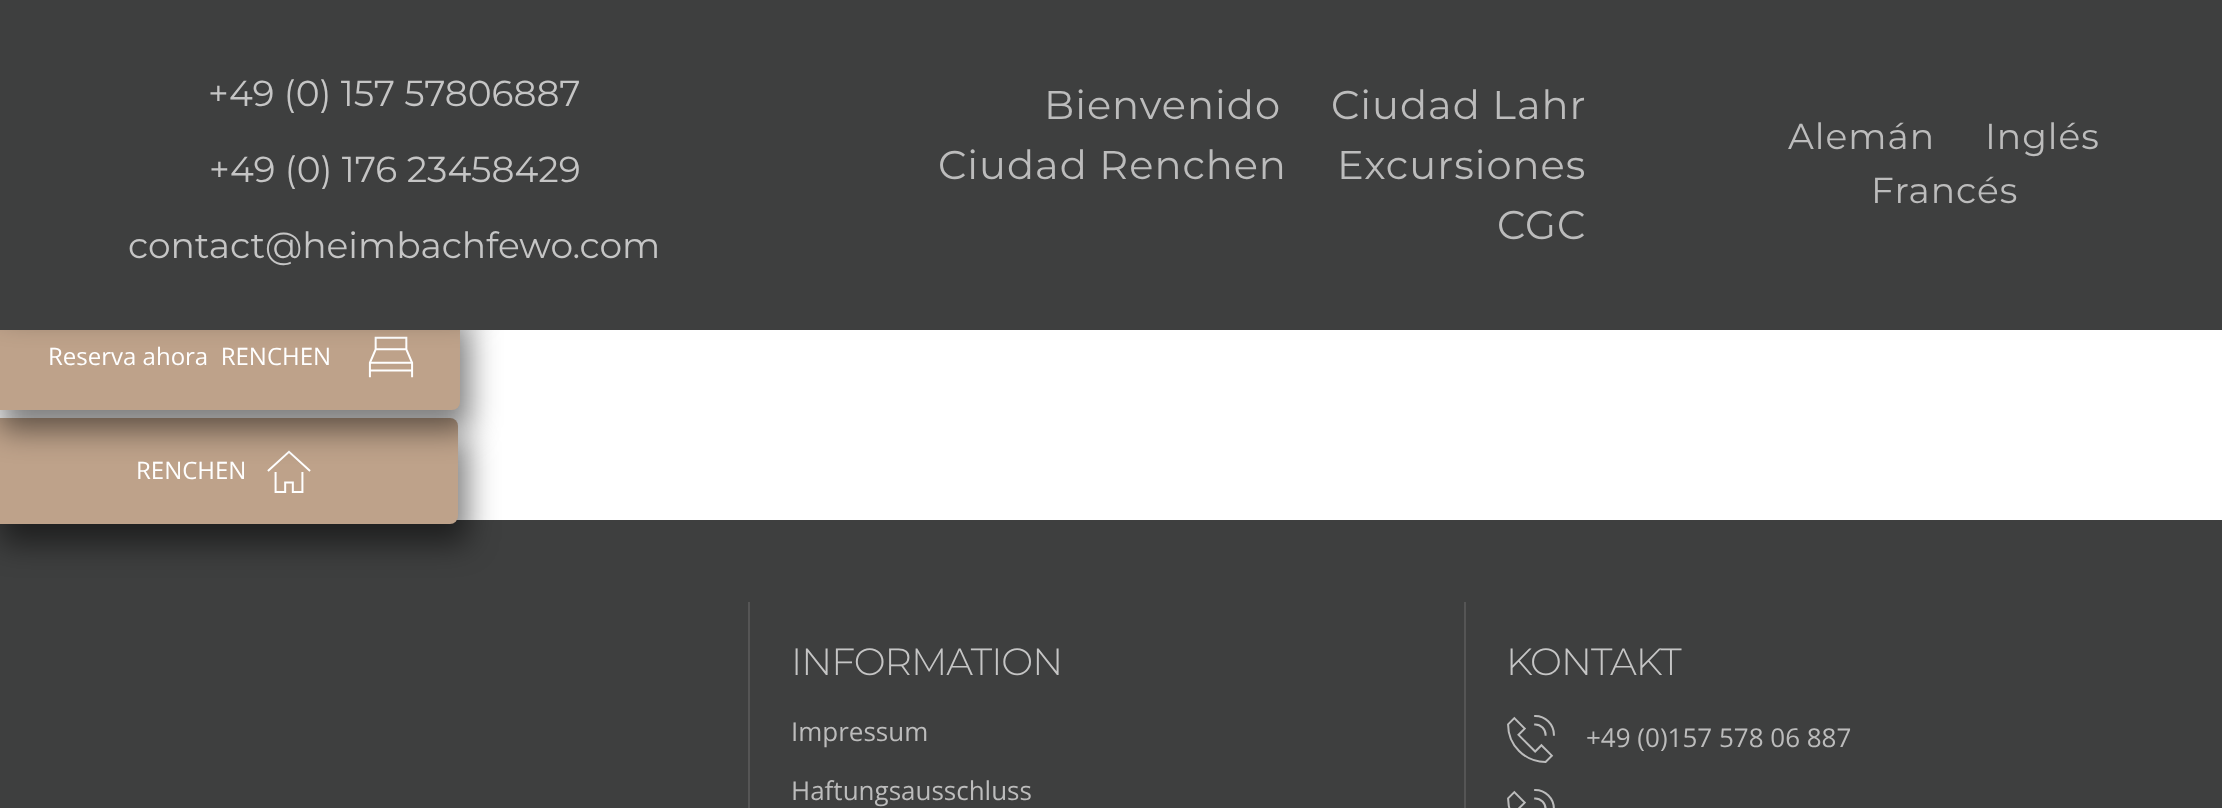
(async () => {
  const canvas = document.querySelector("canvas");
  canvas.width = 2222;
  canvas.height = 808;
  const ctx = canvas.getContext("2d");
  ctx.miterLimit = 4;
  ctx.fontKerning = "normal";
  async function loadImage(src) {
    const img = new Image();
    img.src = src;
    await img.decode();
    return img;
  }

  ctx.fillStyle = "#ffffff";
  ctx.fillRect(0, 0, 2222, 808);
  ctx.fillStyle = "#3e3f3f";
  ctx.fillRect(0, 520, 2222, 288);
  ctx.fillStyle = "rgba(0, 0, 0, 0.5)";
  ctx.filter = "blur(15px)";
  ctx.beginPath();
  ctx.roundRect(0, 438, 468, 106, 8);
  ctx.fill();
  ctx.filter = "none";
  ctx.fillStyle = "#bea28a";
  ctx.beginPath();
  ctx.roundRect(-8, 418, 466, 106, 8);
  ctx.fill();
  ctx.drawImage(await loadImage("img/2.png"), 267, 450, 44, 43);
  ctx.fillStyle = "rgba(0, 0, 0, 0.5)";
  ctx.filter = "blur(15px)";
  ctx.beginPath();
  ctx.roundRect(0, 324, 470, 106, 8);
  ctx.fill();
  ctx.filter = "none";
  ctx.fillStyle = "#bea28a";
  ctx.beginPath();
  ctx.roundRect(-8, 304, 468, 106, 8);
  ctx.fill();
  ctx.drawImage(await loadImage("img/1.png"), 368, 336, 46, 42);
  ctx.fillStyle = "rgba(0, 0, 0, 0.5)";
  ctx.filter = "blur(15px)";
  ctx.beginPath();
  ctx.roundRect(0, 208, 476, 106, 8);
  ctx.fill();
  ctx.filter = "none";
  for (const [x, y, w, h, color] of [
    [0, 0, 2222, 330, "#3e3f3f"],
    [748, 602, 2, 206, "#555555"],
    [1464, 602, 2, 206, "#555555"],
  ]) {
    ctx.fillStyle = color;
    ctx.fillRect(x, y, w, h);
  }
  ctx.drawImage(await loadImage("img/3.png"), 1507, 715, 48, 48);
  ctx.drawImage(await loadImage("img/4.png"), 1507, 789, 48, 19);
  ctx.font = "100 36px 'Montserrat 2'";
  ctx.fillStyle = "#c5c5c5";
  for (const [text, x, y] of [
    ["+49 (0) 157 57806887", 208, 106],
    ["+49 (0) 176 23458429", 209, 182],
    ["contact@heimbachfewo.com", 128, 258],
  ]) {
    ctx.fillText(text, x, y);
  }
  ctx.letterSpacing = "1px";
  ctx.font = "100 40px 'Montserrat 2'";
  ctx.fillStyle = "#bcbcbc";
  for (const [text, x, y] of [
    ["Bienvenido", 1044, 119],
    ["Ciudad Lahr", 1331, 119],
    ["Ciudad Renchen", 938, 179],
    ["Excursiones", 1337, 179],
    ["CGC", 1497, 239],
  ]) {
    ctx.fillText(text, x, y);
  }
  ctx.font = "100 36px 'Montserrat 2'";
  for (const [text, x, y] of [
    ["Alemán", 1788, 149],
    ["Inglés", 1985, 149],
    ["Francés", 1871, 203],
  ]) {
    ctx.fillText(text, x, y);
  }
  ctx.letterSpacing = "0px";
  ctx.font = "24px Open Sans";
  ctx.fillStyle = "#ffffff";
  ctx.fillText("Reserva ahora  RENCHEN", 48, 365);
  ctx.fillText("RENCHEN", 136, 479);
  ctx.letterSpacing = "-1px";
  ctx.font = "100 38px Montserrat";
  ctx.fillStyle = "#c5c5c5";
  ctx.fillText("INFORMATION", 791, 675);
  ctx.letterSpacing = "0px";
  ctx.font = "26px Open Sans";
  ctx.fillStyle = "#bcbcbc";
  ctx.fillText("Impressum", 791, 741);
  ctx.fillText("Haftungsausschluss", 791, 800);
  ctx.letterSpacing = "-1px";
  ctx.font = "100 38px Montserrat";
  ctx.fillStyle = "#c5c5c5";
  ctx.fillText("KONTAKT", 1506, 675);
  ctx.letterSpacing = "0px";
  ctx.font = "26px Open Sans";
  ctx.fillStyle = "#bcbcbc";
  ctx.fillText("+49 (0)157 578 06 887", 1586, 747);
})();
